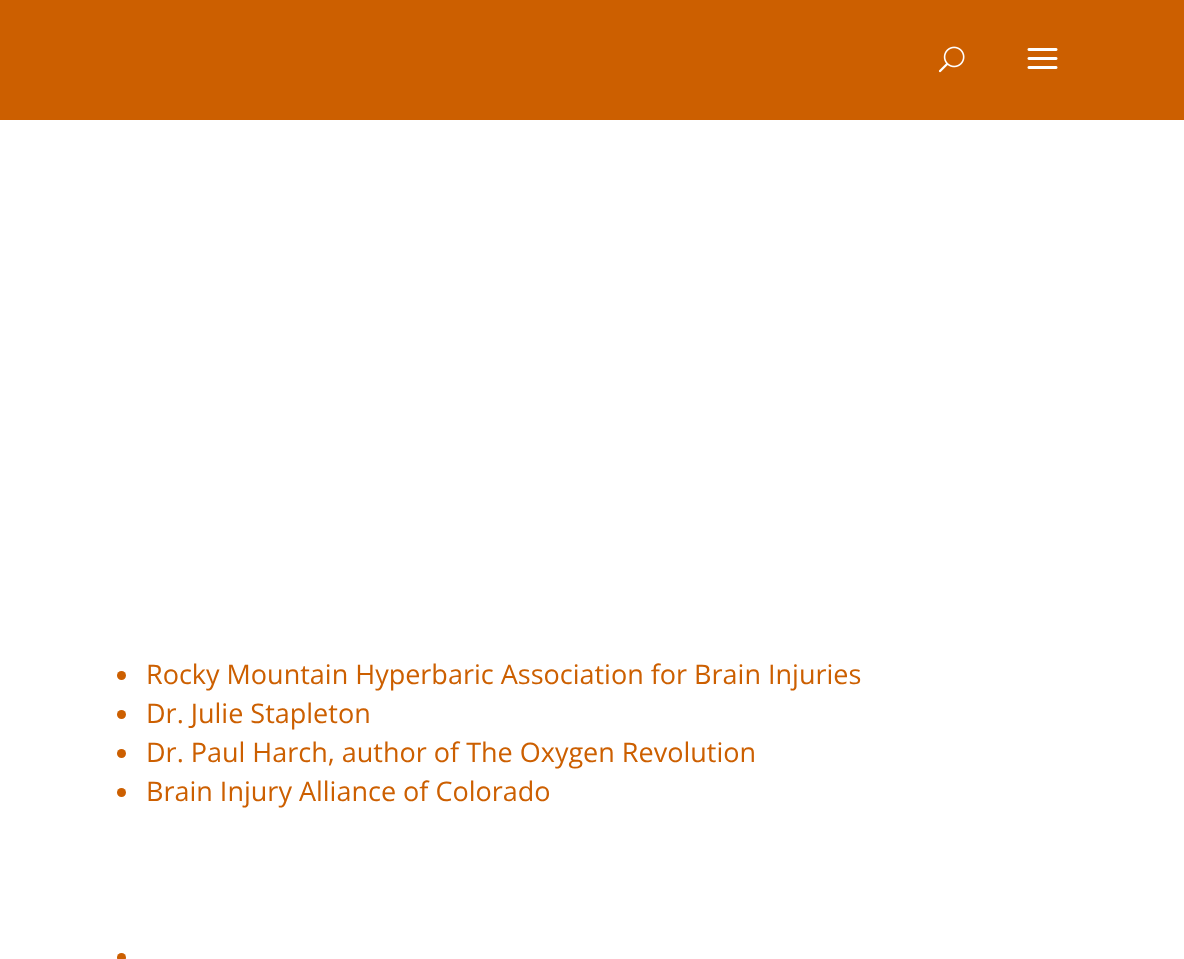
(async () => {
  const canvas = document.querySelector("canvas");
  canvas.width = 1184;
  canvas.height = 959;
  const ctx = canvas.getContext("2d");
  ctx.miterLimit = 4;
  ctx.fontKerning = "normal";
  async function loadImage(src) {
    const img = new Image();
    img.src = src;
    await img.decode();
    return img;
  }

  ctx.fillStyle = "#ffffff";
  ctx.fillRect(0, 0, 1184, 959);
  ctx.fillStyle = "#cc5f00";
  ctx.fillRect(0, 0, 1184, 120);
  ctx.drawImage(await loadImage("img/1.png"), 938, 46, 27, 27);
  ctx.drawImage(await loadImage("img/2.png"), 1027, 48, 31, 21);
  ctx.beginPath();
  ctx.arc(121.5, 675.5, 4.5, 0, Math.PI * 2);
  ctx.fill();
  ctx.beginPath();
  ctx.arc(121.5, 714.5, 4.5, 0, Math.PI * 2);
  ctx.fill();
  ctx.beginPath();
  ctx.arc(121.5, 753.5, 4.5, 0, Math.PI * 2);
  ctx.fill();
  ctx.beginPath();
  ctx.arc(121.5, 792.5, 4.5, 0, Math.PI * 2);
  ctx.fill();
  ctx.beginPath();
  ctx.arc(121.5, 957.5, 4.5, 0, Math.PI * 2);
  ctx.fill();
  ctx.font = "27px Open Sans";
  for (const [text, x, y] of [
    ["Rocky Mountain Hyperbaric Association for Brain Injuries", 146, 684],
    ["Dr. Julie Stapleton", 146, 723],
    ["Dr. Paul Harch, author of The Oxygen Revolution", 146, 762],
    ["Brain Injury Alliance of Colorado", 146, 801],
  ]) {
    ctx.fillText(text, x, y);
  }
})();
